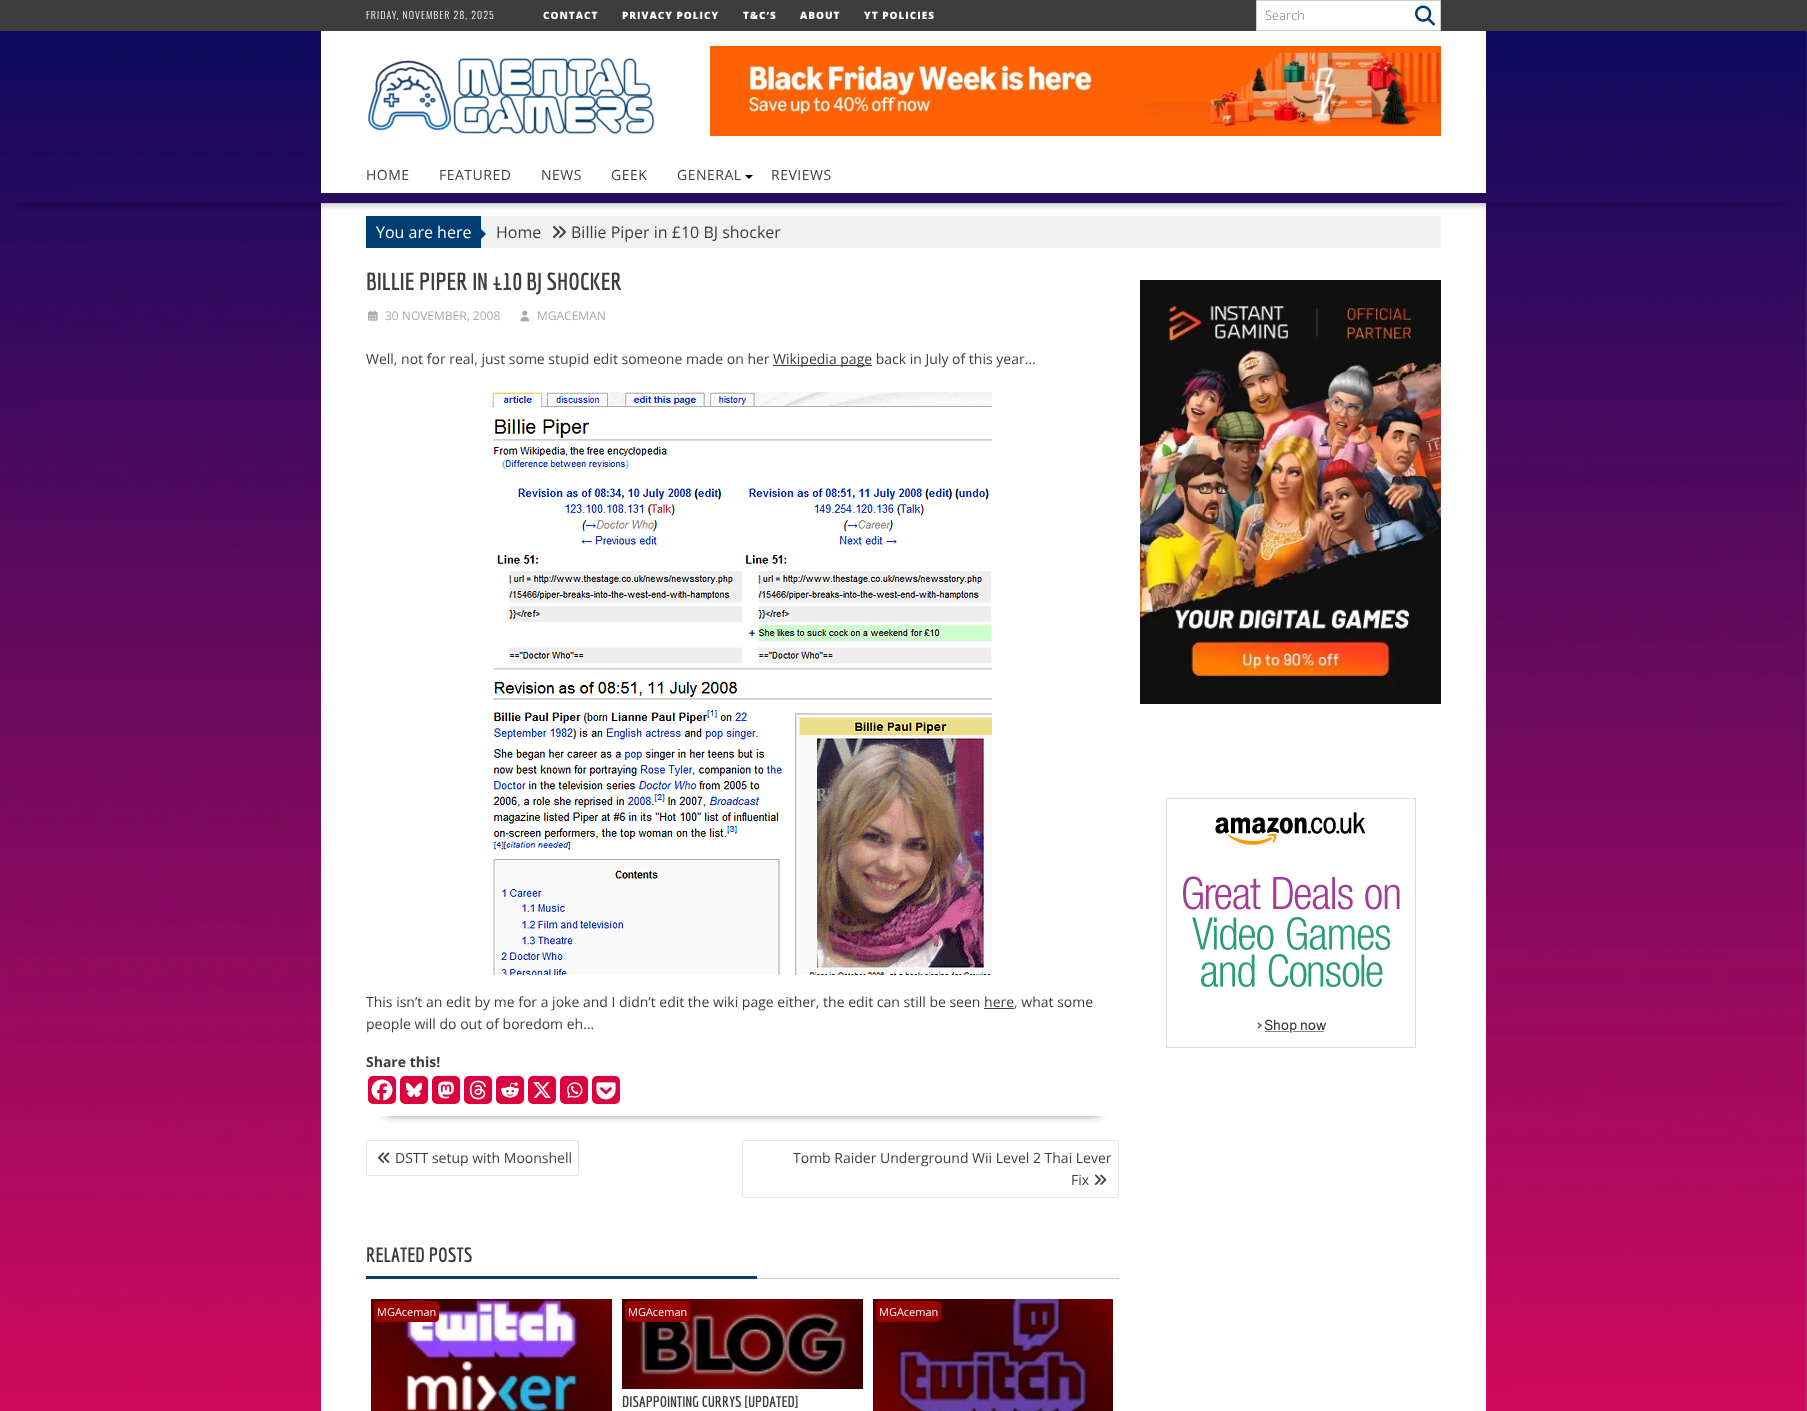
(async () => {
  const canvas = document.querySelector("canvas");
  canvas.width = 1807;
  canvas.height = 1411;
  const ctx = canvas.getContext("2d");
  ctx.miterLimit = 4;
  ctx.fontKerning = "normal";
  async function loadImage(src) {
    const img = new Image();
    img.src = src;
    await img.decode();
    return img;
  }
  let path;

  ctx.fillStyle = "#ffffff";
  ctx.fillRect(0, 0, 1807, 1411);
  ctx.drawImage(await loadImage("img/1.png"), 0, 31, 1807, 1380);
  ctx.fillStyle = "#3d3d3d";
  ctx.fillRect(0, 0, 1807, 31);
  ctx.fillStyle = "#ffffff";
  ctx.beginPath();
  ctx.rect(1256.5, 0.5, 184, 30);
  ctx.fill();
  ctx.strokeStyle = "#cccccc";
  ctx.stroke();
  ctx.drawImage(await loadImage("img/2.png"), 1415, 5, 20, 21);
  ctx.fillRect(321, 31, 1165, 120);
  ctx.drawImage(await loadImage("img/3.png"), 367, 58, 288, 76);
  ctx.drawImage(await loadImage("img/4.png"), 710, 46, 731, 90);
  ctx.fillRect(321, 203, 1165, 1208);
  ctx.fillStyle = "#f1f1f1";
  ctx.fillRect(481, 216, 960, 32);
  ctx.save();
  ctx.beginPath();
  ctx.rect(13, 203, 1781, 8);
  ctx.clip();
  ctx.fillStyle = "rgba(0, 0, 0, 0.75)";
  ctx.filter = "blur(5.5px)";
  ctx.beginPath();
  ctx.rect(20, 188, 1767, 12);
  ctx.fill();
  ctx.filter = "none";
  ctx.restore();
  ctx.fillStyle = "#ffffff";
  ctx.fillRect(321, 151, 1165, 42);
  ctx.fillStyle = "#000000";
  path = new Path2D("M745 175H753L749 179Z");
  ctx.fill(path);
  ctx.fillStyle = "#003d72";
  ctx.fillRect(366, 216, 115, 32);
  path = new Path2D("M481 239V229L486 234Z");
  ctx.fill(path);
  ctx.drawImage(await loadImage("img/5.png"), 553, 226, 13, 12);
  ctx.save();
  ctx.beginPath();
  ctx.rect(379, 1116, 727, 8);
  ctx.clip();
  ctx.fillStyle = "rgba(0, 0, 0, 0.75)";
  ctx.filter = "blur(5.5px)";
  ctx.beginPath();
  ctx.rect(386, 305, 713, 808);
  ctx.fill();
  ctx.filter = "none";
  ctx.restore();
  ctx.drawImage(await loadImage("img/6.png"), 368, 310, 10, 11);
  ctx.drawImage(await loadImage("img/7.png"), 520, 310, 10, 12);
  ctx.fillStyle = "#3d3d3d";
  ctx.fillRect(773, 365, 99, 1);
  ctx.drawImage(await loadImage("img/8.png"), 492, 392, 500, 583);
  ctx.fillRect(984, 1008, 30, 1);
  ctx.fillStyle = "#dd003e";
  ctx.beginPath();
  ctx.roundRect(368, 1076, 28, 28, 5);
  ctx.fill();
  ctx.drawImage(await loadImage("img/9.png"), 371, 1079, 22, 22);
  ctx.beginPath();
  ctx.roundRect(400, 1076, 28, 28, 5);
  ctx.fill();
  ctx.drawImage(await loadImage("img/10.png"), 405, 1082, 18, 16);
  ctx.beginPath();
  ctx.roundRect(432, 1076, 28, 28, 5);
  ctx.fill();
  ctx.drawImage(await loadImage("img/11.png"), 438, 1081, 16, 18);
  ctx.beginPath();
  ctx.roundRect(464, 1076, 28, 28, 5);
  ctx.fill();
  ctx.drawImage(await loadImage("img/12.png"), 469, 1080, 17, 20);
  ctx.beginPath();
  ctx.roundRect(496, 1076, 28, 28, 5);
  ctx.fill();
  ctx.drawImage(await loadImage("img/13.png"), 501, 1082, 18, 16);
  ctx.beginPath();
  ctx.roundRect(528, 1076, 28, 28, 5);
  ctx.fill();
  ctx.drawImage(await loadImage("img/14.png"), 533, 1082, 18, 16);
  ctx.beginPath();
  ctx.roundRect(560, 1076, 28, 28, 5);
  ctx.fill();
  ctx.drawImage(await loadImage("img/15.png"), 567, 1082, 16, 16);
  ctx.beginPath();
  ctx.roundRect(592, 1076, 28, 28, 5);
  ctx.fill();
  ctx.drawImage(await loadImage("img/16.png"), 596, 1082, 20, 18);
  ctx.beginPath();
  ctx.roundRect(366.5, 1140.5, 212, 35, 1.5);
  ctx.strokeStyle = "#e5e5e5";
  ctx.stroke();
  ctx.drawImage(await loadImage("img/17.png"), 378, 1152, 12, 11);
  ctx.beginPath();
  ctx.roundRect(742.5, 1140.5, 376, 57, 1.5);
  ctx.stroke();
  ctx.drawImage(await loadImage("img/18.png"), 1094, 1174, 13, 11);
  ctx.fillStyle = "#cccccc";
  ctx.fillRect(757, 1278, 362, 1);
  ctx.fillStyle = "#003d72";
  ctx.fillRect(366, 1276, 391, 3);
  ctx.drawImage(await loadImage("img/19.png"), 371, 1299, 241, 112);
  ctx.fillStyle = "#990000";
  ctx.beginPath();
  ctx.roundRect(374, 1301, 65, 21, 4);
  ctx.fill();
  ctx.drawImage(await loadImage("img/20.png"), 622, 1299, 241, 90);
  ctx.beginPath();
  ctx.roundRect(625, 1301, 65, 21, 4);
  ctx.fill();
  ctx.drawImage(await loadImage("img/21.png"), 873, 1299, 240, 112);
  ctx.beginPath();
  ctx.roundRect(876, 1301, 65, 21, 4);
  ctx.fill();
  ctx.drawImage(await loadImage("img/22.png"), 1140, 280, 301, 424);
  ctx.drawImage(await loadImage("img/23.png"), 1166, 798, 250, 250);
  ctx.letterSpacing = "1px";
  ctx.font = "300 10px Oswald";
  ctx.fillStyle = "#ffffff";
  ctx.fillText("FRIDAY, NOVEMBER 28, 2025", 366, 19);
  ctx.font = "800 10px Open Sans";
  for (const [text, x, y] of [
    ["CONTACT", 543, 19],
    ["PRIVACY POLICY", 622, 19],
    ["T&C’S", 743, 19],
    ["ABOUT", 800, 19],
    ["YT POLICIES", 864, 19],
  ]) {
    ctx.fillText(text, x, y);
  }
  ctx.letterSpacing = "0px";
  ctx.font = "300 13px Open Sans";
  ctx.fillStyle = "#757575";
  ctx.fillText("Search", 1265, 20);
  ctx.letterSpacing = "0.5px";
  ctx.font = "14px Open Sans";
  ctx.fillStyle = "#3d3d3d";
  for (const [text, x, y] of [
    ["HOME", 366, 180],
    ["FEATURED", 439, 180],
    ["NEWS", 541, 180],
    ["GEEK", 611, 180],
    ["GENERAL", 677, 180],
    ["REVIEWS", 771, 180],
  ]) {
    ctx.fillText(text, x, y);
  }
  ctx.letterSpacing = "0px";
  ctx.font = "16px Open Sans";
  ctx.fillStyle = "#ffffff";
  ctx.fillText("You are here", 376, 238);
  ctx.fillStyle = "#3d3d3d";
  ctx.fillText("Home", 496, 238);
  ctx.fillText("Billie Piper in £10 BJ shocker", 571, 238);
  ctx.font = "bold 24px Economica";
  ctx.fillText("BILLIE PIPER IN £10 BJ SHOCKER", 366, 290);
  ctx.font = "12px Open Sans";
  ctx.fillStyle = "#aaaaaa";
  ctx.fillText("30 NOVEMBER, 2008", 385, 320);
  ctx.fillText("MGACEMAN", 537, 320);
  ctx.font = "14px Open Sans";
  ctx.fillStyle = "#3d3d3d";
  for (const [text, x, y] of [
    ["Well, not for real, just some stupid edit someone made on her", 366, 364],
    ["Wikipedia page back in July of this year…", 773, 364],
    ["This isn’t an edit by me for a joke and I didn’t edit the wiki page either, the edit can still be seen here, what some", 366, 1007],
    ["people will do out of boredom eh…", 366, 1029],
  ]) {
    ctx.fillText(text, x, y);
  }
  ctx.font = "bold 14px Open Sans";
  ctx.fillText("Share this!", 366, 1067);
  ctx.font = "14px Open Sans";
  for (const [text, x, y] of [
    ["DSTT setup with Moonshell", 395, 1163],
    ["Tomb Raider Underground Wii Level 2 Thai Lever", 793, 1163],
    ["Fix", 1071, 1185],
  ]) {
    ctx.fillText(text, x, y);
  }
  ctx.font = "bold 20px Economica";
  ctx.fillText("RELATED POSTS", 366, 1262);
  ctx.font = "11px Open Sans";
  ctx.fillStyle = "#ffffff";
  ctx.fillText("MGAceman", 377, 1316);
  ctx.fillText("MGAceman", 628, 1316);
  ctx.font = "bold 15px Economica";
  ctx.fillStyle = "#3d3d3d";
  ctx.fillText("DISAPPOINTING CURRYS [UPDATED]", 622, 1407);
  ctx.font = "11px Open Sans";
  ctx.fillStyle = "#ffffff";
  ctx.fillText("MGAceman", 879, 1316);
})();
